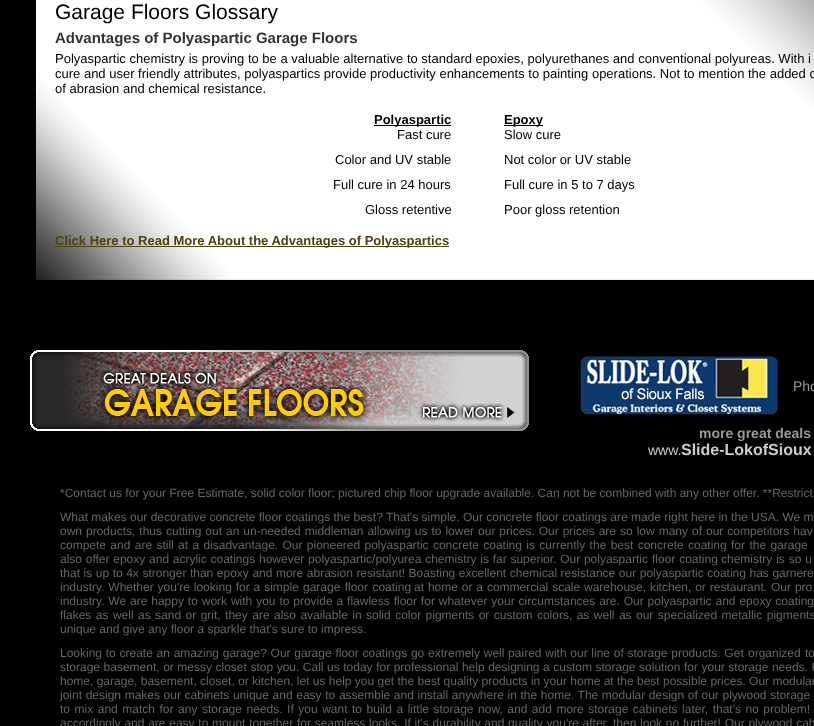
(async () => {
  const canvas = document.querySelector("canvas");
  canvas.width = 814;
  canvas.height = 726;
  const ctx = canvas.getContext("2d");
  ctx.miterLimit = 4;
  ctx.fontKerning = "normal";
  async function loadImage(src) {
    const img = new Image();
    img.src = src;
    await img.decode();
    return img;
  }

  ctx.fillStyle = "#000000";
  ctx.fillRect(0, 0, 814, 726);
  ctx.drawImage(await loadImage("img/1.png"), 36, 0, 778, 280);
  for (const [x, y, w, h, color] of [
    [374, 125, 77, 1, "#000000"],
    [504, 125, 39, 1, "#000000"],
    [55, 246, 394, 1, "#4d4211"],
  ]) {
    ctx.fillStyle = color;
    ctx.fillRect(x, y, w, h);
  }
  ctx.drawImage(await loadImage("img/2.png"), 30, 350, 499, 81);
  ctx.drawImage(await loadImage("img/3.png"), 580, 356, 198, 59);
  ctx.font = "21px Liberation Sans";
  ctx.fillStyle = "#000000";
  ctx.fillText("Garage Floors Glossary", 55, 19);
  ctx.font = "bold 15px Liberation Sans";
  ctx.fillStyle = "#333333";
  ctx.fillText("Advantages of Polyaspartic Garage Floors", 55, 43);
  ctx.font = "13px Liberation Sans";
  ctx.fillStyle = "#000000";
  for (const [text, x, y] of [
    ["Polyaspartic chemistry is proving to be a valuable alternative to standard epoxies, polyurethanes and conventional polyureas. With i", 55, 63],
    ["cure and user friendly attributes, polyaspartics provide productivity enhancements to painting operations. Not to mention the added c", 55, 78],
    ["of abrasion and chemical resistance.", 55, 93],
  ]) {
    ctx.fillText(text, x, y);
  }
  ctx.font = "bold 13px Liberation Sans";
  ctx.fillText("Polyaspartic", 374, 124);
  ctx.font = "13px Liberation Sans";
  for (const [text, x, y] of [
    ["Fast cure", 397, 139],
    ["Color and UV stable", 335, 164],
    ["Full cure in 24 hours", 333, 189],
    ["Gloss retentive", 365, 214],
  ]) {
    ctx.fillText(text, x, y);
  }
  ctx.font = "bold 13px Liberation Sans";
  ctx.fillText("Epoxy", 504, 124);
  ctx.font = "13px Liberation Sans";
  for (const [text, x, y] of [
    ["Slow cure", 504, 139],
    ["Not color or UV stable", 504, 164],
    ["Full cure in 5 to 7 days", 504, 189],
    ["Poor gloss retention", 504, 214],
  ]) {
    ctx.fillText(text, x, y);
  }
  ctx.font = "bold 13px Liberation Sans";
  ctx.fillStyle = "#4d4211";
  ctx.fillText("Click Here to Read More About the Advantages of Polyaspartics", 55, 245);
  ctx.font = "14px Liberation Sans";
  ctx.fillStyle = "#999999";
  ctx.fillText("Pho", 793, 391);
  ctx.font = "bold 14px Liberation Sans";
  ctx.fillText("more great deals", 699, 438);
  ctx.font = "14px Liberation Sans";
  ctx.fillStyle = "#cccccc";
  ctx.fillText("www.", 648, 455);
  ctx.font = "bold 16px Liberation Sans";
  ctx.fillText("Slide-LokofSioux", 681, 455);
  ctx.font = "12px Liberation Sans";
  ctx.fillStyle = "#666666";
  ctx.fillText("*Contact us for your Free Estimate, solid color floor; pictured chip floor upgrade available. Can not be combined with any other offer. **Restrict", 60, 497);
  ctx.fillText("What makes our decorative concrete floor coatings the best? That's simple. Our concrete floor coatings are made right here in the USA. We m", 60, 521);
  ctx.wordSpacing = "0.65px";
  ctx.fillText("own products, thus cutting out an un-needed middleman allowing us to lower our prices. Our prices are so low many of our competitors hav", 60, 535);
  ctx.wordSpacing = "1px";
  ctx.fillText("compete and are still at a disadvantage. Our pioneered polyaspartic concrete coating is currently the best concrete coating for the garage", 60, 549);
  ctx.wordSpacing = "0.4px";
  ctx.fillText("also offer epoxy and acrylic coatings however polyaspartic/polyurea chemistry is far superior. Our polyaspartic", 60, 563);
  ctx.wordSpacing = "0.5px";
  ctx.fillText("floor coating", 652, 563);
  ctx.fillText("chemistry is so u", 721, 563);
  ctx.wordSpacing = "0.2px";
  ctx.fillText("that is up to 4x stronger than epoxy and more abrasion resistant! Boasting excellent chemical resistance our polyaspartic coating has garnere", 60, 577);
  ctx.wordSpacing = "0.55px";
  ctx.fillText("industry. Whether you're looking for a simple", 60, 591);
  ctx.wordSpacing = "1px";
  ctx.fillText("garage floor coating", 303, 591);
  ctx.wordSpacing = "0.55px";
  ctx.fillText("at home or a commercial scale warehouse, kitchen, or restaurant. Our pro", 414, 591);
  ctx.fillText("industry. We are happy to work with you to provide a flawless floor for whatever your circumstances are. Our polyaspartic and epoxy coating", 60, 605);
  ctx.wordSpacing = "1.1px";
  ctx.fillText("flakes as well as sand or grit, they are also available in solid color pigments or custom colors, as well as our specialized metallic pigments", 60, 619);
  ctx.wordSpacing = "0px";
  ctx.fillText("unique and give any floor a sparkle that's sure to impress.", 60, 633);
  ctx.wordSpacing = "0.4px";
  ctx.fillText("Looking to create an amazing garage? Our garage floor coatings go extremely well paired with our line of storage products. Get", 60, 657);
  ctx.wordSpacing = "0px";
  ctx.fillText("organized", 748, 657);
  ctx.wordSpacing = "0.4px";
  ctx.fillText("to", 805, 657);
  ctx.wordSpacing = "0.2px";
  ctx.fillText("storage basement, or messy closet stop you. Call us today for professional help designing a custom storage solution for your storage needs. F", 60, 671);
  ctx.wordSpacing = "0px";
  ctx.fillText("home, garage, basement, closet, or kitchen, let us help you get the best quality products in your home at the best possible prices. Our modular", 60, 685);
  ctx.wordSpacing = "0.3px";
  ctx.fillText("joint design makes our cabinets unique and easy to assemble and install anywhere in the home. The modular design of our plywood storage", 60, 699);
  ctx.wordSpacing = "1.2px";
  ctx.fillText("to mix and match for any storage needs. If you want to build a little storage now, and add more storage cabinets later, that's no problem!", 60, 713);
  ctx.wordSpacing = "0.4px";
  ctx.fillText("accordingly and are easy to mount together for seamless looks. If it's durability and quality you're after, then look no further! Our plywood cab", 60, 727);
})();
